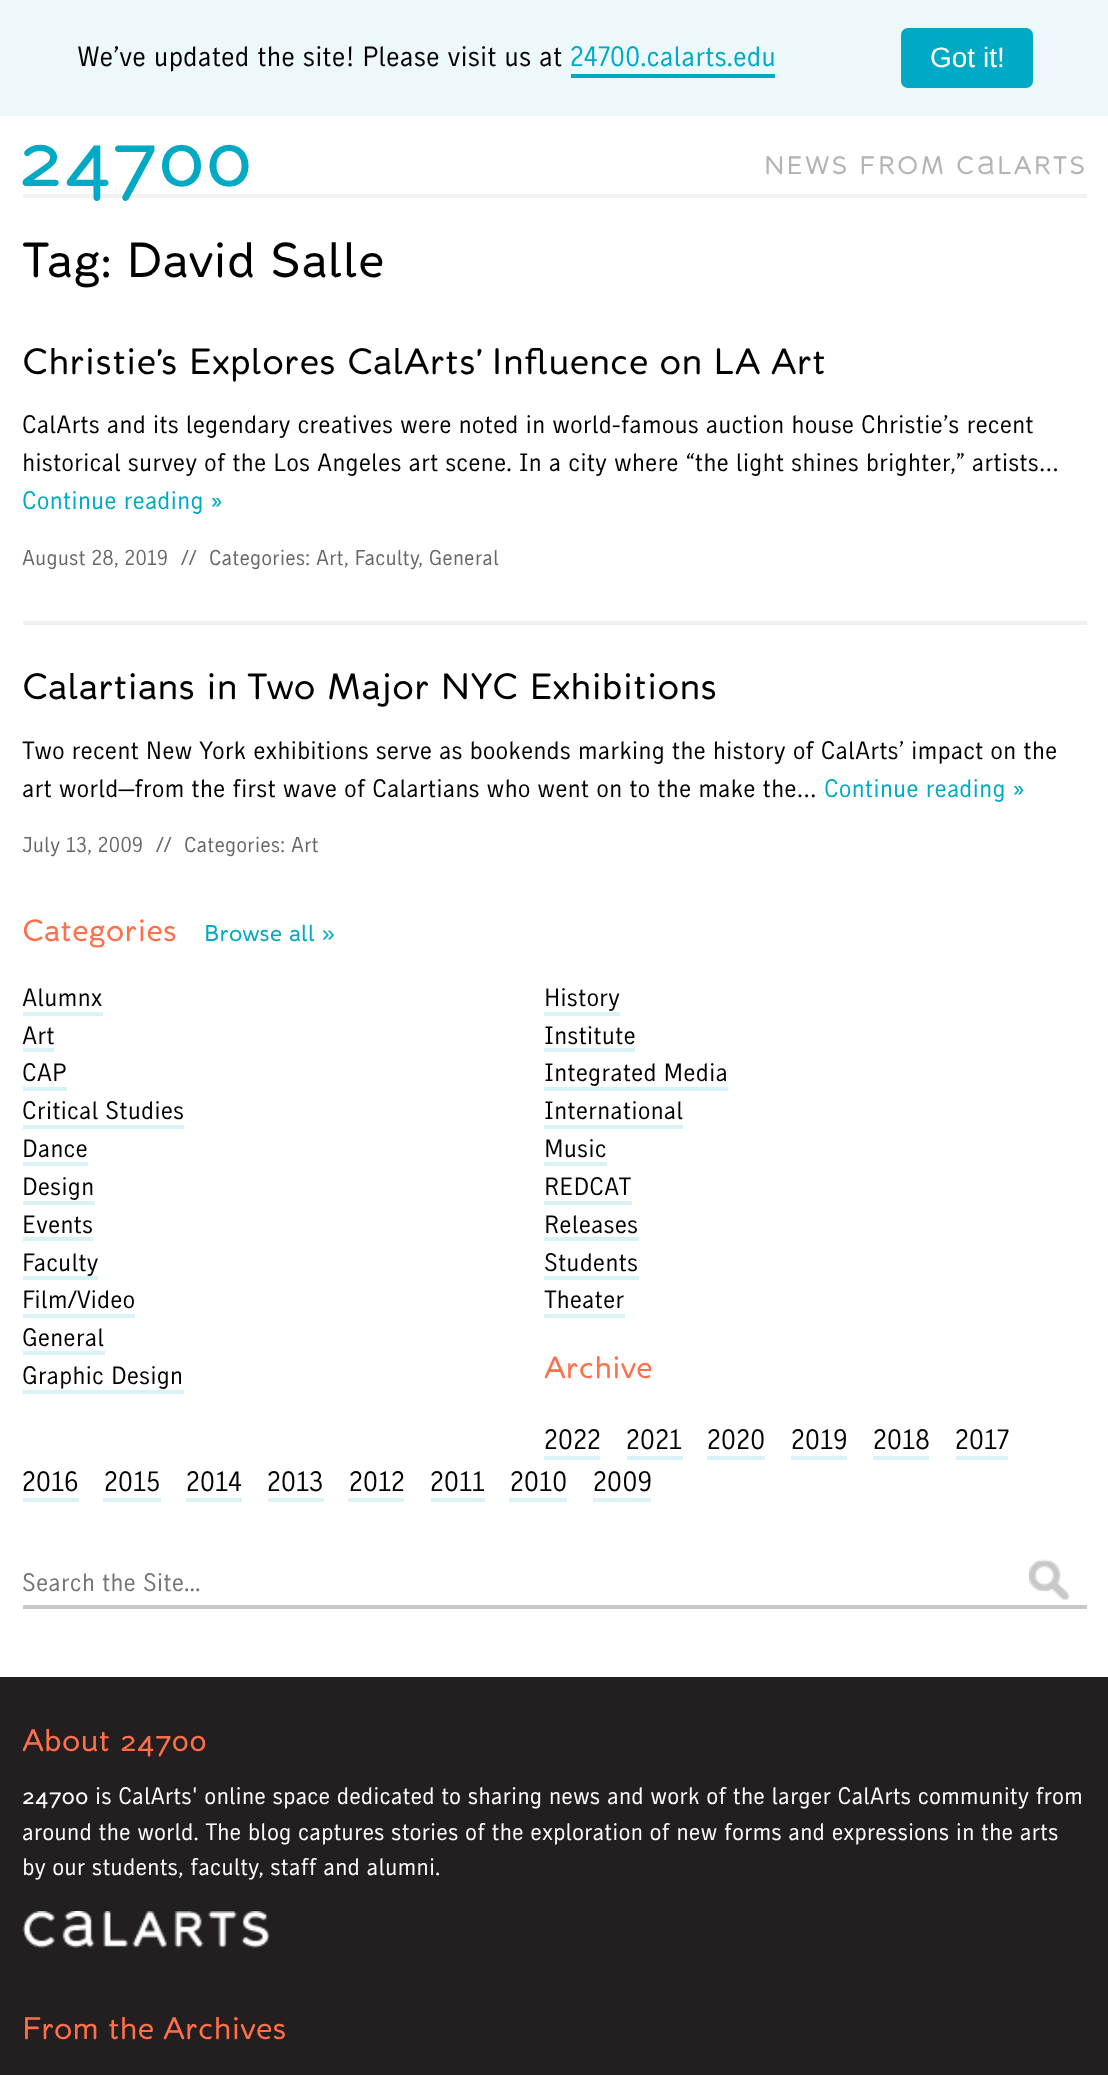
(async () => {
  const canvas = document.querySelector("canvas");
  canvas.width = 1108;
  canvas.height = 2075;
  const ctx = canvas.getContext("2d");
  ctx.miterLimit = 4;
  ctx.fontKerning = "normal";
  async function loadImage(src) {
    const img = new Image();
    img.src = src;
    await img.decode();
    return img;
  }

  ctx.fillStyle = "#ffffff";
  ctx.fillRect(0, 0, 1108, 2075);
  ctx.fillStyle = "#ecf8fa";
  ctx.fillRect(0, 0, 1108, 116);
  ctx.fillStyle = "#00a9c4";
  ctx.fillRect(571, 74, 204, 4);
  ctx.beginPath();
  ctx.roundRect(901, 28, 132, 60, 7);
  ctx.fill();
  for (const [x, y, w, h, color] of [
    [23, 194, 1064, 4, "#f2f2f2"],
    [23, 621, 1064, 4, "#f0f0ef"],
    [23, 1012, 80, 4, "#d9f2f6"],
    [23, 1048, 31, 4, "#d9f2f6"],
    [23, 1087, 44, 4, "#d9f2f6"],
    [23, 1125, 161, 4, "#d9f2f6"],
    [23, 1162, 65, 4, "#d9f2f6"],
    [23, 1201, 72, 4, "#d9f2f6"],
    [23, 1237, 70, 4, "#d9f2f6"],
    [23, 1276, 75, 4, "#d9f2f6"],
    [23, 1314, 112, 4, "#d9f2f6"],
    [23, 1351, 82, 4, "#d9f2f6"],
    [23, 1390, 161, 4, "#d9f2f6"],
    [544, 1012, 76, 4, "#d9f2f6"],
    [544, 1048, 91, 4, "#d9f2f6"],
    [544, 1087, 184, 4, "#d9f2f6"],
    [544, 1125, 139, 4, "#d9f2f6"],
    [544, 1162, 63, 4, "#d9f2f6"],
    [544, 1201, 88, 4, "#d9f2f6"],
    [544, 1237, 95, 4, "#d9f2f6"],
    [544, 1276, 95, 4, "#d9f2f6"],
    [544, 1314, 81, 4, "#d9f2f6"],
    [544, 1456, 56, 4, "#d9f2f6"],
    [627, 1456, 56, 4, "#d9f2f6"],
    [707, 1456, 58, 4, "#d9f2f6"],
    [791, 1456, 56, 4, "#d9f2f6"],
    [873, 1456, 56, 4, "#d9f2f6"],
    [956, 1456, 52, 4, "#d9f2f6"],
    [23, 1498, 56, 4, "#d9f2f6"],
    [103, 1498, 58, 4, "#d9f2f6"],
    [186, 1498, 56, 4, "#d9f2f6"],
    [268, 1498, 56, 4, "#d9f2f6"],
    [348, 1498, 56, 4, "#d9f2f6"],
    [431, 1498, 54, 4, "#d9f2f6"],
    [509, 1498, 58, 4, "#d9f2f6"],
    [593, 1498, 58, 4, "#d9f2f6"],
    [23, 1605, 1064, 4, "#c8c8c8"],
  ]) {
    ctx.fillStyle = color;
    ctx.fillRect(x, y, w, h);
  }
  ctx.drawImage(await loadImage("img/1.png"), 1029, 1559, 41, 41);
  ctx.fillStyle = "#231f20";
  ctx.fillRect(0, 1677, 1108, 398);
  ctx.drawImage(await loadImage("img/2.png"), 22, 1911, 248, 37);
  ctx.font = "28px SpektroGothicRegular";
  ctx.fillStyle = "#000000";
  ctx.fillText("We’ve updated the site! Please visit us at", 77, 66);
  ctx.fillStyle = "#00a9c4";
  ctx.fillText("24700.calarts.edu", 570, 66);
  ctx.font = "28px Liberation Sans";
  ctx.fillStyle = "#ffffff";
  ctx.fillText("Got it!", 930, 67);
  ctx.font = "84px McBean";
  ctx.fillStyle = "#00a9c4";
  ctx.fillText("24700", 18, 186);
  ctx.letterSpacing = "2px";
  ctx.font = "25.2px 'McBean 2'";
  ctx.fillStyle = "#b6b3b1";
  ctx.fillText("NEWS FROM C", 764, 174);
  ctx.font = "25.2px McBean";
  ctx.fillText("A", 977, 174);
  ctx.font = "25.2px 'McBean 2'";
  ctx.fillText("LARTS", 997, 174);
  ctx.letterSpacing = "0px";
  ctx.font = "49px 'McBean 2'";
  ctx.fillStyle = "#000000";
  ctx.fillText("Tag: David Salle", 22, 277);
  ctx.font = "36.5px 'McBean 2'";
  ctx.fillText("Christie’s Explores CalArts’ Influence on LA Art", 22, 374);
  ctx.font = "25.2px SpektroGothicRegular";
  ctx.fillText("CalArts and its legendary creatives were noted in world-famous auction house Christie’s recent", 22, 433);
  ctx.fillText("historical survey of the Los Angeles art scene. In a city where “the light shines brighter,” artists…", 22, 471);
  ctx.fillStyle = "#00a9c4";
  ctx.fillText("Continue reading »", 22, 509);
  ctx.font = "21.5px SpektroGothicRegular";
  ctx.fillStyle = "#6d6763";
  for (const [text, x, y] of [
    ["August 28, 2019", 22, 565],
    ["//", 181, 565],
    ["Categories: Art, Faculty", 209, 565],
    [", General", 418, 565],
  ]) {
    ctx.fillText(text, x, y);
  }
  ctx.font = "36.5px 'McBean 2'";
  ctx.fillStyle = "#000000";
  ctx.fillText("Calartians in Two Major NYC Exhibitions", 22, 699);
  ctx.font = "25.2px SpektroGothicRegular";
  ctx.fillText("Two recent New York exhibitions serve as bookends marking the history of CalArts’ impact on the", 22, 759);
  ctx.fillText("art world—from the first wave of Calartians who went on to the make the…", 22, 797);
  ctx.fillStyle = "#00a9c4";
  ctx.fillText("Continue reading »", 824, 797);
  ctx.font = "21.5px SpektroGothicRegular";
  ctx.fillStyle = "#6d6763";
  for (const [text, x, y] of [
    ["July 13, 2009", 22, 852],
    ["//", 156, 852],
    ["Categories: Art", 184, 852],
  ]) {
    ctx.fillText(text, x, y);
  }
  ctx.font = "30.75px 'McBean 2'";
  ctx.fillStyle = "#ff6f49";
  ctx.fillText("Categories", 22, 941);
  ctx.font = "22.75px 'McBean 2'";
  ctx.fillStyle = "#00a9c4";
  ctx.fillText("Browse all", 204, 941);
  ctx.font = "22.75px Liberation Sans";
  ctx.fillText("»", 322, 941);
  ctx.font = "25.2px SpektroGothicRegular";
  ctx.fillStyle = "#000000";
  for (const [text, x, y] of [
    ["Alumnx", 22, 1006],
    ["Art", 22, 1044],
    ["CAP", 22, 1081],
    ["Critical Studies", 22, 1119],
    ["Dance", 22, 1157],
    ["Design", 22, 1195],
    ["Events", 22, 1233],
    ["Faculty", 22, 1271],
    ["Film/Video", 22, 1308],
    ["General", 22, 1346],
    ["Graphic Design", 22, 1384],
    ["History", 544, 1006],
    ["Institute", 544, 1044],
    ["Integrated Media", 544, 1081],
    ["International", 544, 1119],
    ["Music", 544, 1157],
    ["REDCAT", 544, 1195],
    ["Releases", 544, 1233],
    ["Students", 544, 1271],
    ["Theater", 544, 1308],
  ]) {
    ctx.fillText(text, x, y);
  }
  ctx.font = "30.75px 'McBean 2'";
  ctx.fillStyle = "#ff6f49";
  ctx.fillText("Archive", 544, 1378);
  ctx.font = "28px SpektroGothicRegular";
  ctx.fillStyle = "#000000";
  for (const [text, x, y] of [
    ["2022", 544, 1449],
    ["2021", 626, 1449],
    ["2020", 707, 1449],
    ["2019", 791, 1449],
    ["2018", 873, 1449],
    ["2017", 955, 1449],
    ["2016", 22, 1491],
    ["2015", 104, 1491],
    ["2014", 186, 1491],
    ["2013", 267, 1491],
    ["2012", 349, 1491],
    ["2011", 430, 1491],
    ["2010", 510, 1491],
    ["2009", 593, 1491],
  ]) {
    ctx.fillText(text, x, y);
  }
  ctx.font = "25.2px SpektroGothicRegular";
  ctx.fillStyle = "#757575";
  ctx.fillText("Search the Site...", 22, 1591);
  ctx.font = "31px 'McBean 2'";
  ctx.fillStyle = "#ff6f49";
  ctx.fillText("About", 22, 1751);
  ctx.font = "31px McBean";
  ctx.fillText("24700", 120, 1751);
  ctx.font = "23.8px McBean";
  ctx.fillStyle = "#ffffff";
  ctx.fillText("24700", 22, 1804);
  ctx.font = "23.8px SpektroGothicRegular";
  for (const [text, x, y] of [
    ["is CalArts' online space dedicated to sharing news and work of the larger CalArts community from", 95, 1804],
    ["around the world. The blog captures stories of the exploration of new forms and expressions in the arts", 22, 1840],
    ["by our students, faculty, staff and alumni.", 22, 1875],
  ]) {
    ctx.fillText(text, x, y);
  }
  ctx.font = "31px 'McBean 2'";
  ctx.fillStyle = "#ff6f49";
  ctx.fillText("From the Archives", 22, 2039);
})();
